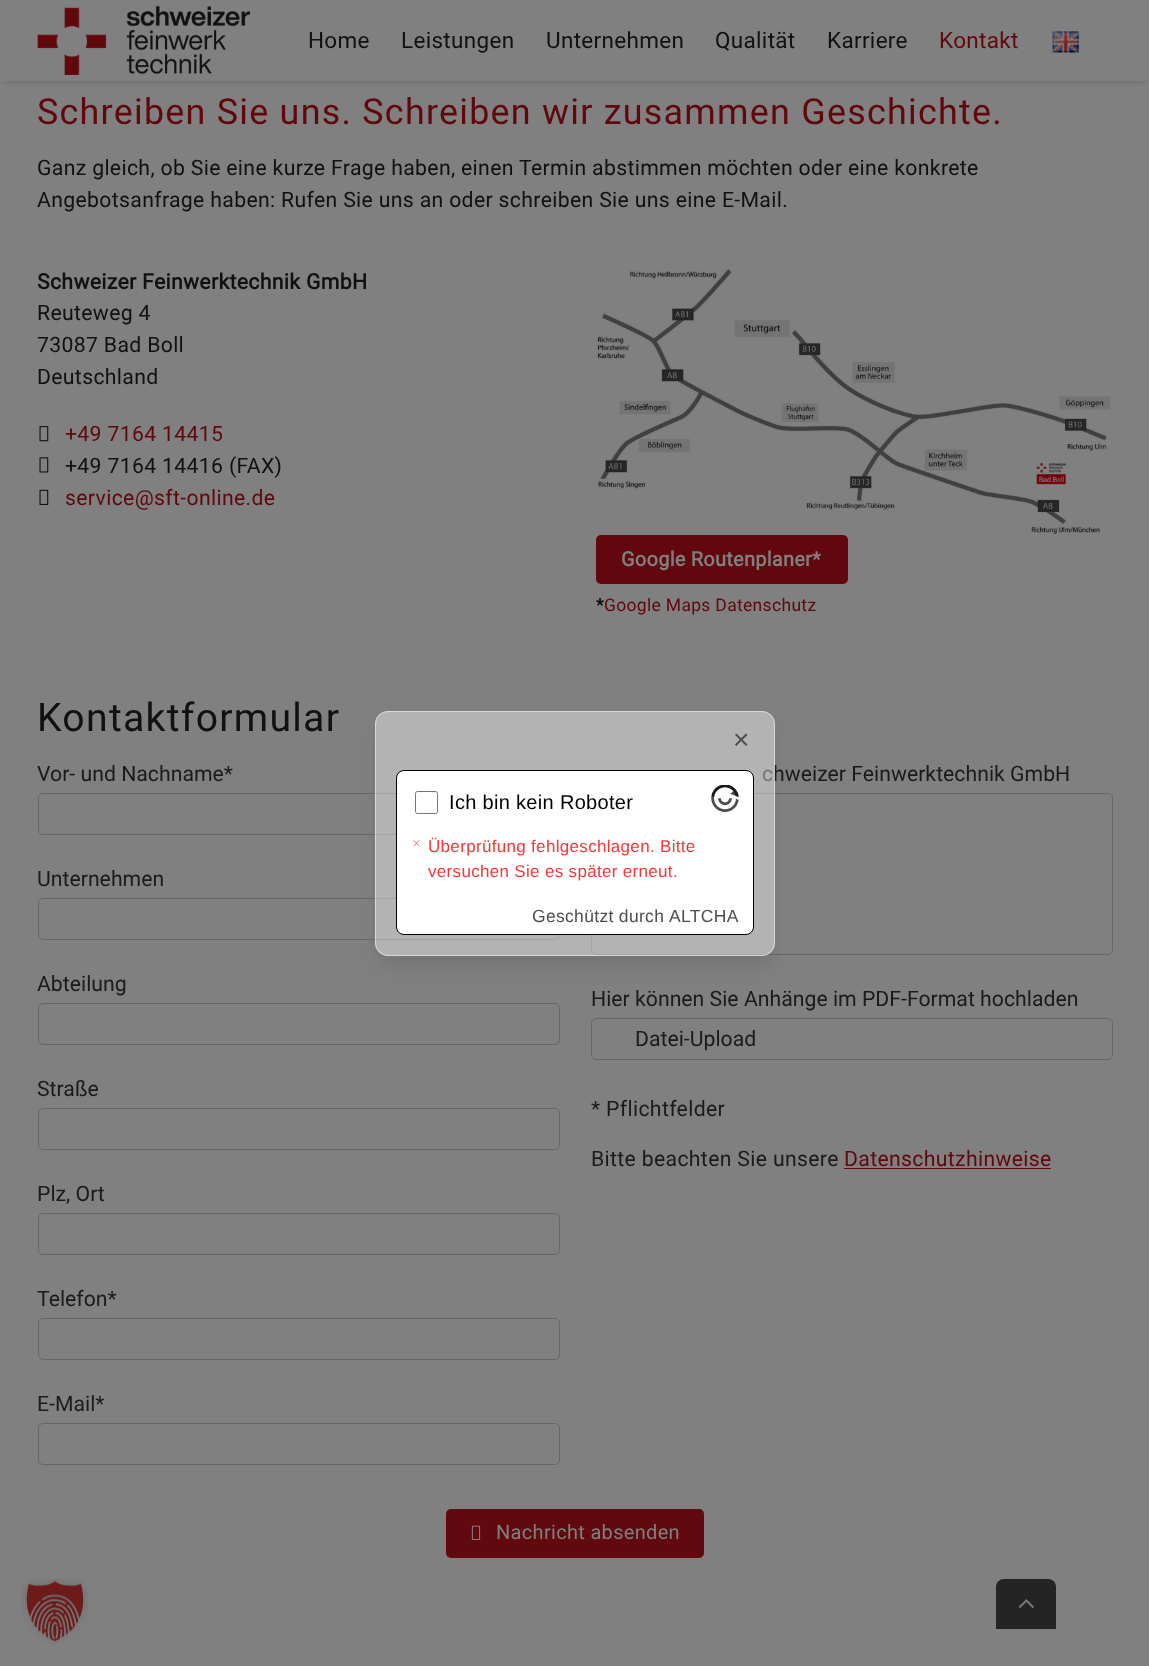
(async () => {
  const canvas = document.querySelector("canvas");
  canvas.width = 1149;
  canvas.height = 1666;
  const ctx = canvas.getContext("2d");
  ctx.miterLimit = 4;
  ctx.fontKerning = "normal";
  async function loadImage(src) {
    const img = new Image();
    img.src = src;
    await img.decode();
    return img;
  }
  let path;

  ctx.fillStyle = "#808080";
  ctx.fillRect(0, 0, 1149, 1666);
  ctx.fillStyle = "rgba(0, 0, 0, 0.12)";
  ctx.filter = "blur(2px)";
  ctx.beginPath();
  ctx.rect(4, 9, 1142, 74);
  ctx.fill();
  ctx.filter = "none";
  ctx.fillStyle = "#808080";
  ctx.fillRect(2, 7, 1146, 74);
  ctx.drawImage(await loadImage("img/1.png"), 37, 6, 213, 69);
  ctx.drawImage(await loadImage("img/2.png"), 1052, 31, 27, 22);
  ctx.drawImage(await loadImage("img/3.png"), 39, 426, 10, 16);
  ctx.drawImage(await loadImage("img/4.png"), 39, 457, 10, 16);
  ctx.drawImage(await loadImage("img/5.png"), 39, 489, 10, 16);
  ctx.drawImage(await loadImage("img/6.png"), 597, 269, 514, 265);
  ctx.fillStyle = "#61070d";
  ctx.beginPath();
  ctx.roundRect(596, 535, 252, 49, 5);
  ctx.fill();
  ctx.beginPath();
  ctx.roundRect(38.5, 793.5, 521, 41, 4.5);
  ctx.strokeStyle = "#676767";
  ctx.stroke();
  ctx.beginPath();
  ctx.roundRect(38.5, 898.5, 521, 41, 4.5);
  ctx.stroke();
  ctx.beginPath();
  ctx.roundRect(38.5, 1003.5, 521, 41, 4.5);
  ctx.stroke();
  ctx.beginPath();
  ctx.roundRect(38.5, 1108.5, 521, 41, 4.5);
  ctx.stroke();
  ctx.beginPath();
  ctx.roundRect(38.5, 1213.5, 521, 41, 4.5);
  ctx.stroke();
  ctx.beginPath();
  ctx.roundRect(38.5, 1318.5, 521, 41, 4.5);
  ctx.stroke();
  ctx.beginPath();
  ctx.roundRect(38.5, 1423.5, 521, 41, 4.5);
  ctx.stroke();
  ctx.beginPath();
  ctx.roundRect(591.5, 793.5, 521, 161, 4.5);
  ctx.stroke();
  ctx.beginPath();
  ctx.roundRect(591.5, 1018.5, 521, 41, 4.5);
  ctx.stroke();
  ctx.fillStyle = "#62090f";
  ctx.fillRect(844, 1168, 207, 1);
  ctx.beginPath();
  ctx.roundRect(446, 1509, 258, 49, 5);
  ctx.fill();
  ctx.drawImage(await loadImage("img/7.png"), 471, 1525, 10, 15);
  ctx.save();
  path = new Path2D("M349 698H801V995H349ZM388 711H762C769 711 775 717 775 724V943C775 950 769 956 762 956H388C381 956 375 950 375 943V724C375 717 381 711 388 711Z");
  ctx.clip(path, "evenodd");
  ctx.fillStyle = "rgba(0, 0, 0, 0.1)";
  ctx.filter = "blur(9.5px)";
  ctx.beginPath();
  ctx.roundRect(379, 728, 392, 237, 9);
  ctx.fill();
  ctx.filter = "none";
  ctx.restore();
  ctx.drawImage(await loadImage("img/9.png"), 21, 1578, 68, 66);
  ctx.fillStyle = "#242424";
  ctx.beginPath();
  ctx.roundRect(996, 1579, 60, 50, [8, 8, 0, 0]);
  ctx.fill();
  ctx.drawImage(await loadImage("img/10.png"), 1018, 1599, 16, 10);
  ctx.letterSpacing = "0.32px";
  ctx.font = "22.5px Roboto";
  ctx.fillStyle = "#111111";
  for (const [text, x, y] of [
    ["Home", 308, 48],
    ["Leistungen", 401, 48],
    ["Unternehmen", 546, 48],
    ["Qualität", 715, 48],
    ["Karriere", 827, 48],
  ]) {
    ctx.fillText(text, x, y);
  }
  ctx.fillStyle = "#61070d";
  ctx.fillText("Kontakt", 939, 48);
  ctx.letterSpacing = "1.25px";
  ctx.font = "35.9px Roboto";
  ctx.fillText("Schreiben Sie uns. Schreiben wir zusammen Geschichte.", 37, 124);
  ctx.letterSpacing = "0.32px";
  ctx.font = "21.25px Roboto";
  ctx.fillStyle = "#111111";
  ctx.fillText("Ganz gleich, ob Sie eine kurze Frage haben, einen Termin abstimmen möchten oder eine konkrete", 37, 175);
  ctx.fillText("Angebotsanfrage haben: Rufen Sie uns an oder schreiben Sie uns eine E-Mail.", 37, 207);
  ctx.font = "bold 21.25px Roboto";
  ctx.fillText("Schweizer Feinwerktechnik GmbH", 37, 289);
  ctx.font = "21.25px Roboto";
  for (const [text, x, y] of [
    ["Reuteweg 4", 37, 320],
    ["73087 Bad Boll", 37, 352],
    ["Deutschland", 37, 384],
  ]) {
    ctx.fillText(text, x, y);
  }
  ctx.fillStyle = "#61070d";
  ctx.fillText("+49 7164 14415", 65, 441);
  ctx.fillStyle = "#111111";
  ctx.fillText("+49 7164 14416 (FAX)", 65, 473);
  ctx.fillStyle = "#61070d";
  ctx.fillText("service@sft-online.de", 65, 505);
  ctx.letterSpacing = "0.25px";
  ctx.font = "bold 20px Roboto";
  ctx.fillStyle = "#808080";
  ctx.fillText("Google Routenplaner*", 621, 566);
  ctx.letterSpacing = "0.32px";
  ctx.font = "bold 17.5px Roboto";
  ctx.fillStyle = "#111111";
  ctx.fillText("*", 596, 611);
  ctx.font = "17.5px Roboto";
  ctx.fillStyle = "#61070d";
  ctx.fillText("Google Maps Datenschutz", 604, 611);
  ctx.letterSpacing = "1.25px";
  ctx.font = "39.25px Roboto";
  ctx.fillStyle = "#111111";
  ctx.fillText("Kontaktformular", 37, 731);
  ctx.letterSpacing = "0px";
  ctx.font = "21.25px Roboto";
  ctx.fillStyle = "#1b1b1b";
  for (const [text, x, y] of [
    ["Vor- und Nachname*", 37, 781],
    ["Unternehmen", 37, 886],
    ["Abteilung", 37, 991],
    ["Straße", 37, 1096],
    ["Plz, Ort", 37, 1201],
    ["Telefon*", 37, 1306],
    ["E-Mail*", 37, 1411],
    ["chweizer Feinwerktechnik GmbH", 762, 781],
    ["Hier können Sie Anhänge im PDF-Format hochladen", 591, 1006],
    ["Datei-Upload", 635, 1046],
  ]) {
    ctx.fillText(text, x, y);
  }
  ctx.letterSpacing = "0.32px";
  ctx.fillText("* Pflichtfelder", 591, 1116);
  ctx.fillText("Bitte beachten Sie unsere", 591, 1166);
  ctx.fillStyle = "#61070d";
  ctx.fillText("Datenschutzhinweise", 844, 1166);
  ctx.font = "20px Roboto";
  ctx.fillStyle = "#808080";
  ctx.fillText("Nachricht absenden", 496, 1539);
  ctx.fillStyle = "rgba(255, 255, 255, 0.4)";
  ctx.beginPath();
  ctx.roundRect(375, 711, 400, 245, 13);
  ctx.fill();
  ctx.beginPath();
  ctx.roundRect(375.5, 711.5, 399, 244, 12.5);
  ctx.strokeStyle = "rgba(255, 255, 255, 0.5)";
  ctx.stroke();
  ctx.letterSpacing = "0px";
  ctx.font = "28px Liberation Sans";
  ctx.fillStyle = "#4d4d4d";
  ctx.fillText("×", 733, 749);
  ctx.fillStyle = "#ffffff";
  ctx.beginPath();
  ctx.roundRect(396.5, 770.5, 357, 164, 7.5);
  ctx.fill();
  ctx.strokeStyle = "#000000";
  ctx.stroke();
  ctx.beginPath();
  ctx.roundRect(415.5, 791.5, 22, 22, 2);
  ctx.strokeStyle = "#767676";
  ctx.stroke();
  ctx.letterSpacing = "0.32px";
  ctx.font = "20px Liberation Sans";
  ctx.fillStyle = "#000000";
  ctx.fillText("Ich bin kein Roboter", 449, 809);
  ctx.drawImage(await loadImage("img/8.png"), 711, 785, 28, 27);
  path = new Path2D("M414 846L419 840.5M414 840.5L419 846");
  ctx.strokeStyle = "#f23939";
  ctx.lineWidth = 0.7;
  ctx.lineCap = "round";
  ctx.lineJoin = "round";
  ctx.stroke(path);
  ctx.font = "17px Liberation Sans";
  ctx.fillStyle = "#f23939";
  ctx.fillText("Überprüfung fehlgeschlagen. Bitte", 428, 852);
  ctx.fillText("versuchen Sie es später erneut.", 428, 877);
  ctx.font = "17.5px Liberation Sans";
  ctx.fillStyle = "#4d4d4d";
  ctx.fillText("Geschützt durch", 532, 922);
  ctx.fillText("ALTCHA", 669, 922);
})();
